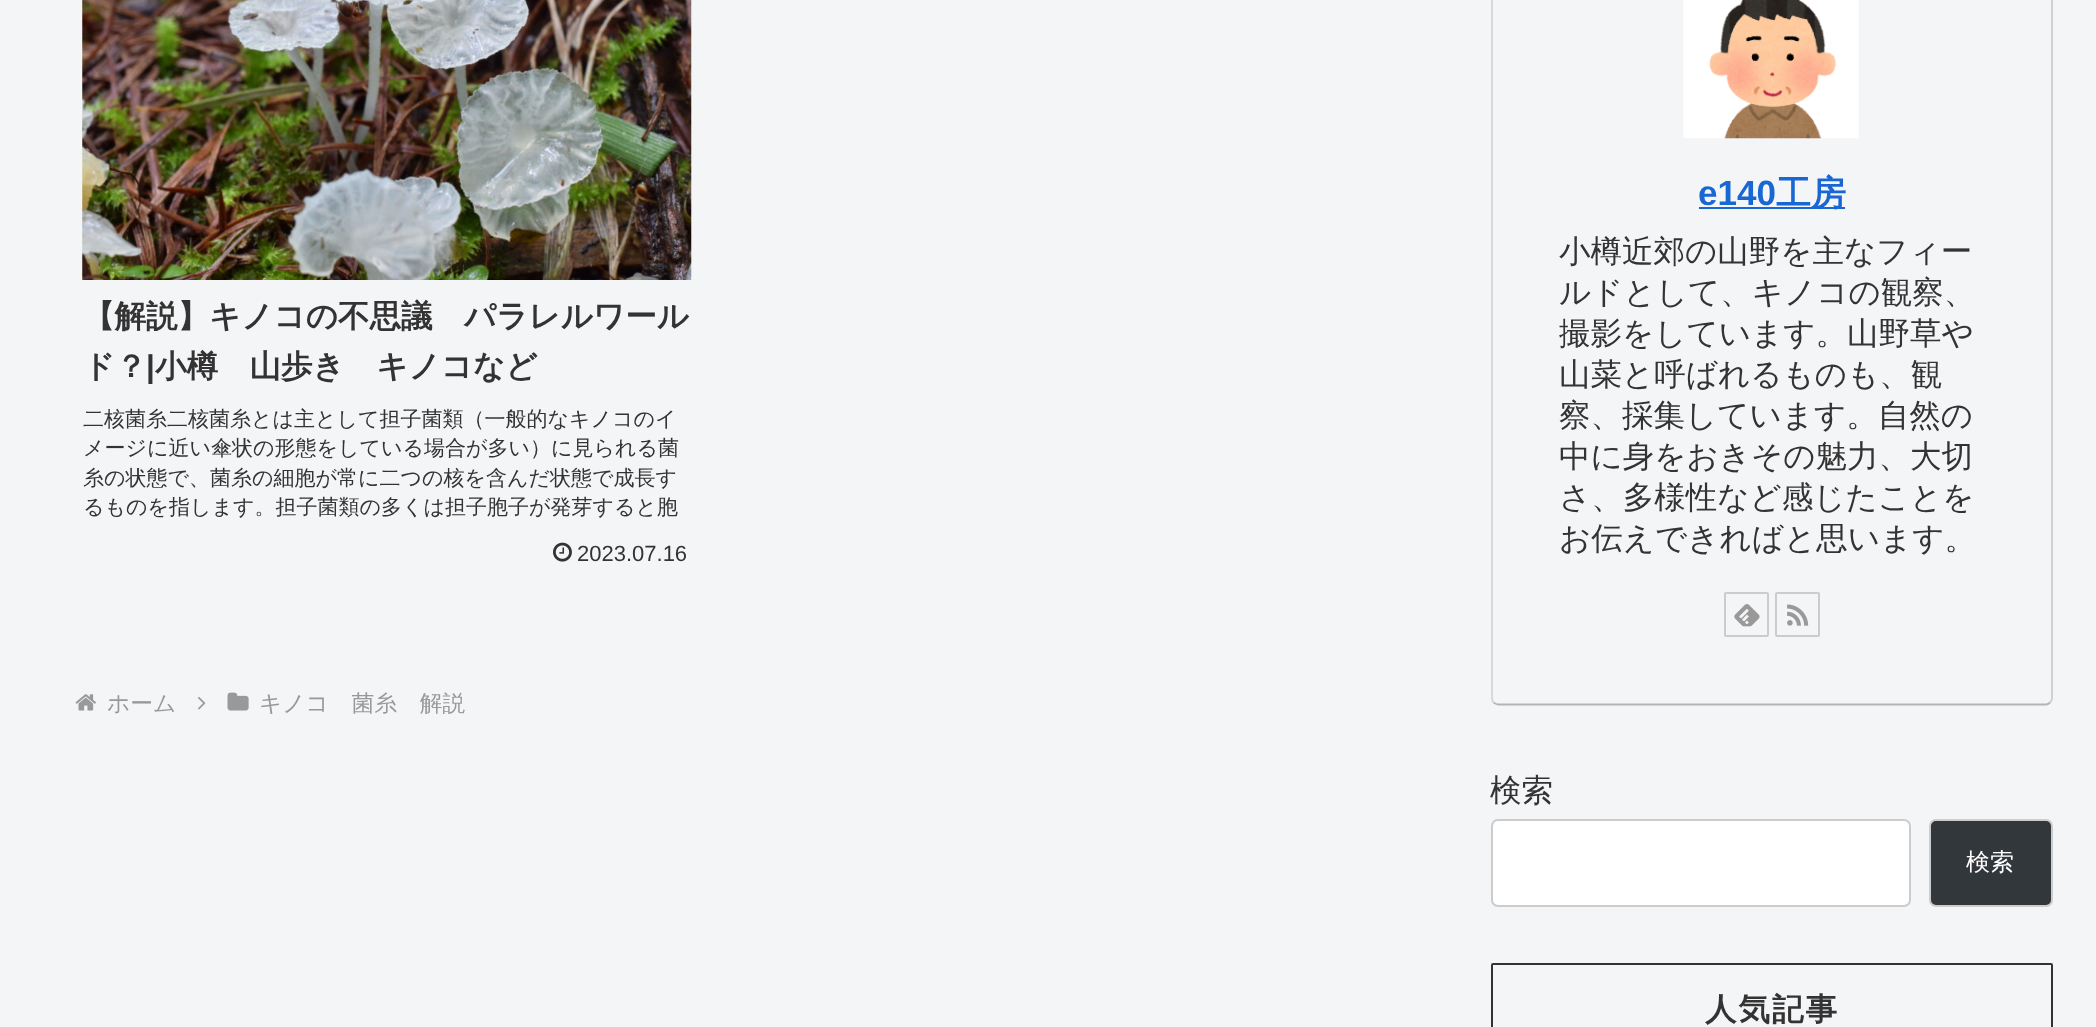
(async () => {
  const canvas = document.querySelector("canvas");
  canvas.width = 2096;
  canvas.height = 1027;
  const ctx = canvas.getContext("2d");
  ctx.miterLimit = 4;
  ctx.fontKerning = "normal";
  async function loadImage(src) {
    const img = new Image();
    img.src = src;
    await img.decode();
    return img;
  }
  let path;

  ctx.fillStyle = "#f4f5f7";
  ctx.fillRect(0, 0, 2096, 1027);
  ctx.drawImage(await loadImage("img/1.png"), 82, 0, 610, 280);
  ctx.drawImage(await loadImage("img/2.png"), 553, 542, 19, 20);
  ctx.drawImage(await loadImage("img/3.png"), 75, 694, 21, 17);
  ctx.drawImage(await loadImage("img/4.png"), 198, 697, 8, 13);
  ctx.drawImage(await loadImage("img/5.png"), 227, 692, 22, 19);
  path = new Path2D("M2050-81.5C2051-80 2052-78.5 2052-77V698C2052 700 2051 701.5 2050 702.5");
  ctx.strokeStyle = "#cecece";
  ctx.lineWidth = 1.8;
  ctx.stroke(path);
  path = new Path2D("M2050 702.5C2049 703.5 2047.5 704.5 2046 704.5H1498C1496.5 704.5 1495 703.5 1493.5 702.5");
  ctx.strokeStyle = "#b4b4b4";
  ctx.stroke(path);
  path = new Path2D("M1493.5 702.5C1492.5 701.5 1492 700 1492 698V-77C1492-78.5 1492.5-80 1493.5-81.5");
  ctx.strokeStyle = "#d6d6d6";
  ctx.stroke(path);
  ctx.drawImage(await loadImage("img/6.png"), 1683, 0, 176, 139);
  ctx.fillStyle = "#1967d2";
  ctx.fillRect(1699, 207, 146, 2);
  ctx.beginPath();
  ctx.roundRect(1725, 593, 43, 43, 1);
  ctx.strokeStyle = "#cccccc";
  ctx.lineWidth = 2;
  ctx.stroke();
  ctx.drawImage(await loadImage("img/7.png"), 1734, 604, 26, 23);
  ctx.beginPath();
  ctx.roundRect(1776, 593, 43, 43, 1);
  ctx.stroke();
  ctx.drawImage(await loadImage("img/8.png"), 1787, 604, 22, 22);
  ctx.fillStyle = "#ffffff";
  ctx.beginPath();
  ctx.roundRect(1492, 820, 418, 86, 6);
  ctx.fill();
  ctx.stroke();
  ctx.fillStyle = "#32373c";
  ctx.beginPath();
  ctx.roundRect(1930, 820, 122, 86, 6);
  ctx.fill();
  ctx.stroke();
  ctx.beginPath();
  ctx.roundRect(1492, 964, 560, 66, 1);
  ctx.strokeStyle = "#333333";
  ctx.stroke();
  ctx.font = "bold 31.5px WenQuanYi Zen Hei";
  ctx.fillStyle = "#333333";
  ctx.fillText("【解説】キノコの不思議　パラレルワール", 83, 327);
  ctx.fillText("ド？", 83, 377);
  ctx.font = "bold 31.5px Liberation Sans";
  ctx.fillText("|", 146, 377);
  ctx.font = "bold 31.5px WenQuanYi Zen Hei";
  ctx.fillText("小樽　山歩き　キノコなど", 155, 377);
  ctx.font = "500 21px WenQuanYi Zen Hei";
  for (const [text, x, y] of [
    ["二核菌糸二核菌糸とは主として担子菌類（一般的なキノコのイ", 83, 426],
    ["メージに近い傘状の形態をしている場合が多い）に見られる菌", 83, 455],
    ["糸の状態で、菌糸の細胞が常に二つの核を含んだ状態で成長す", 83, 485],
    ["るものを指します。担子菌類の多くは担子胞子が発芽すると胞", 83, 514],
  ]) {
    ctx.fillText(text, x, y);
  }
  ctx.font = "22px Liberation Sans";
  ctx.fillText("2023.07.16", 577, 561);
  ctx.font = "500 22.75px WenQuanYi Zen Hei";
  ctx.fillStyle = "#999999";
  ctx.fillText("ホーム", 107, 711);
  ctx.fillText("キノコ　菌糸　解説", 259, 711);
  ctx.font = "bold 35px Liberation Sans";
  ctx.fillStyle = "#1967d2";
  ctx.fillText("e140", 1698, 205);
  ctx.font = "bold 35px WenQuanYi Zen Hei";
  ctx.fillText("工房", 1776, 205);
  ctx.font = "500 31.5px WenQuanYi Zen Hei";
  ctx.fillStyle = "#333333";
  for (const [text, x, y] of [
    ["小樽近郊の山野を主なフィー", 1559, 262],
    ["ルドとして、キノコの観察、", 1559, 303],
    ["撮影をしています。山野草や", 1559, 344],
    ["山菜と呼ばれるものも、観", 1559, 385],
    ["察、採集しています。自然の", 1559, 426],
    ["中に身をおきその魅力、大切", 1559, 467],
    ["さ、多様性など感じたことを", 1559, 508],
    ["お伝えできればと思います。", 1559, 549],
    ["検索", 1490, 801],
  ]) {
    ctx.fillText(text, x, y);
  }
  ctx.font = "500 24px WenQuanYi Zen Hei";
  ctx.fillStyle = "#ffffff";
  ctx.fillText("検索", 1966, 870);
  ctx.letterSpacing = "2px";
  ctx.font = "bold 31.5px WenQuanYi Zen Hei";
  ctx.fillStyle = "#333333";
  ctx.fillText("人気記事", 1705, 1020);
})();
